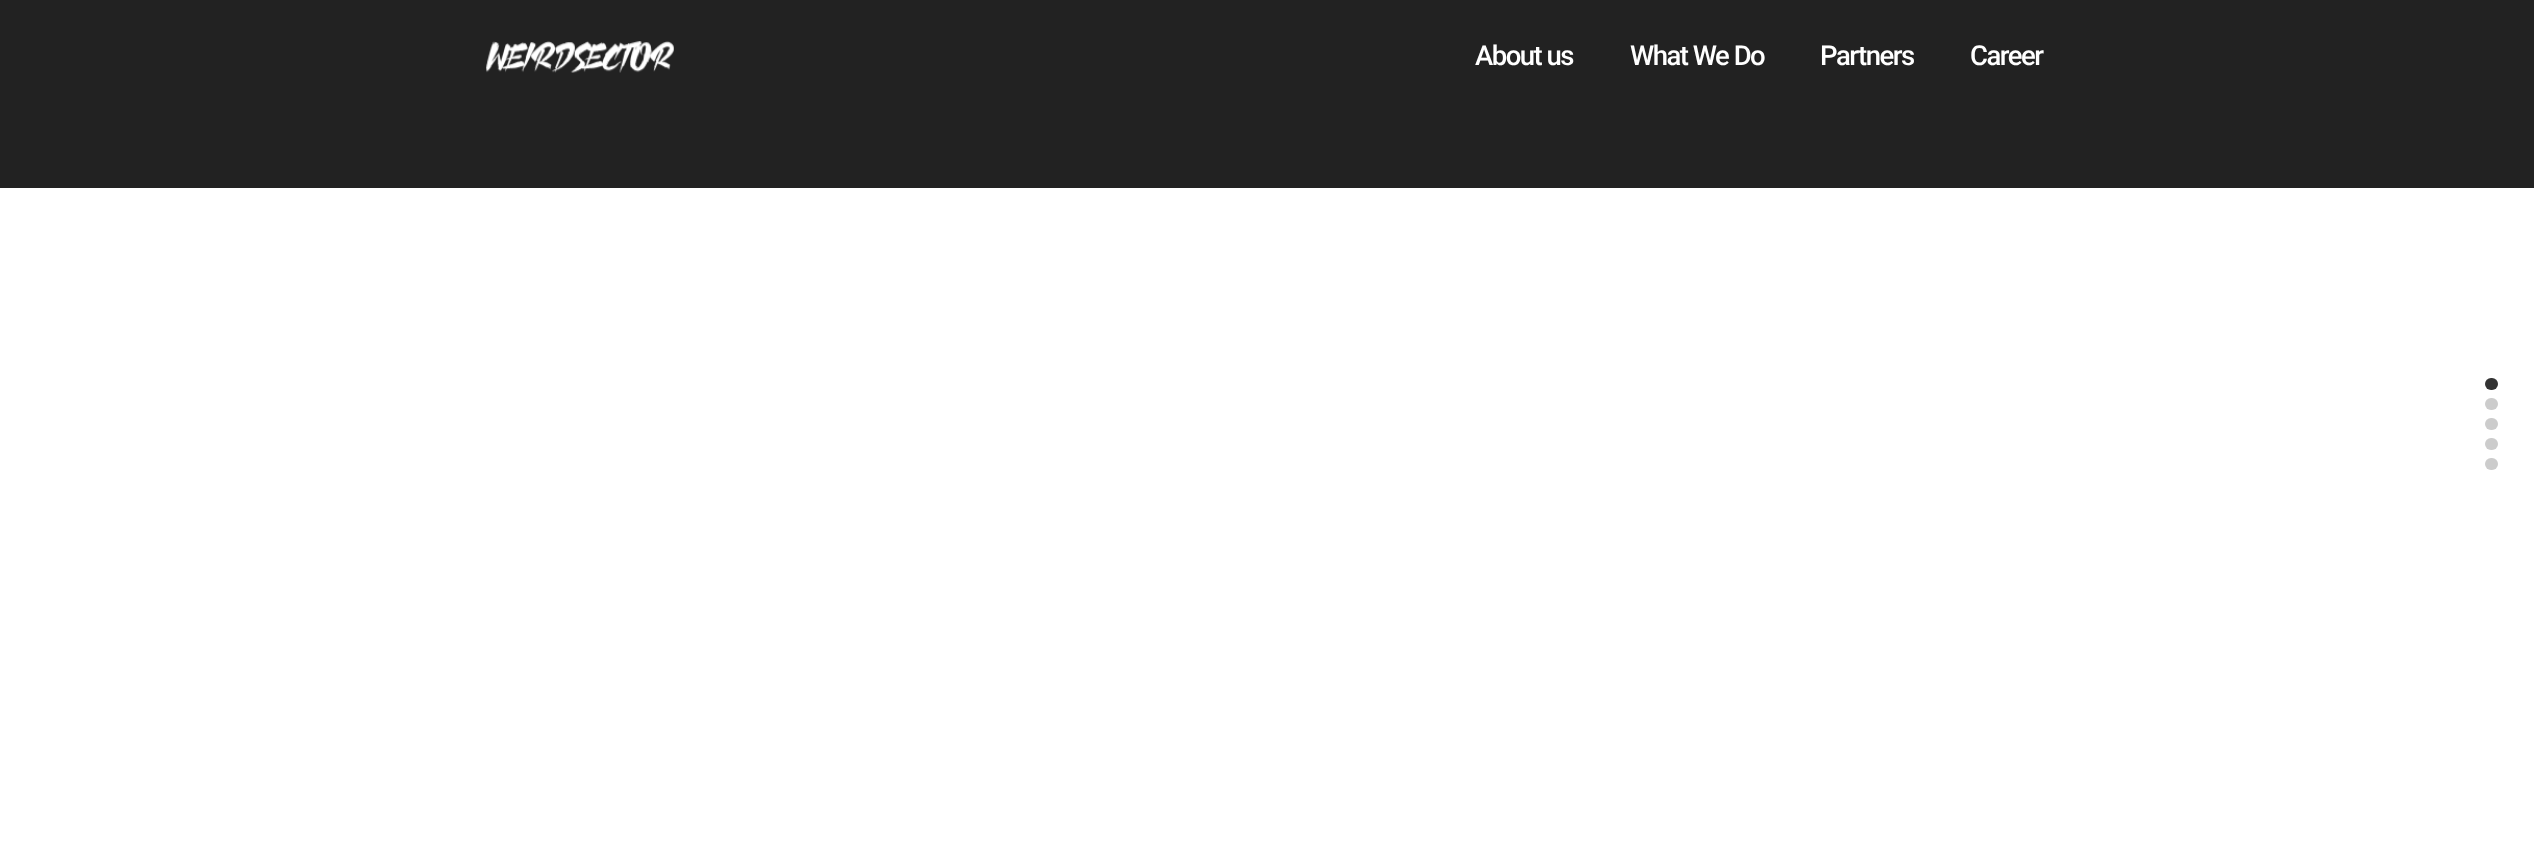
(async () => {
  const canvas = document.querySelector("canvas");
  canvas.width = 2534;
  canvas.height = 846;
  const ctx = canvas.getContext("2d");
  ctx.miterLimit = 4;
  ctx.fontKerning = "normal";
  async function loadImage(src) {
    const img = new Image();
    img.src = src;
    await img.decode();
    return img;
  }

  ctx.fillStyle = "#ffffff";
  ctx.fillRect(0, 0, 2534, 846);
  ctx.fillStyle = "#222222";
  ctx.fillRect(0, 0, 2534, 188);
  ctx.fillStyle = "#333333";
  ctx.beginPath();
  ctx.roundRect(2485, 378, 13, 12, 6);
  ctx.fill();
  ctx.fillStyle = "#cccccc";
  ctx.beginPath();
  ctx.roundRect(2485, 398, 13, 12, 6);
  ctx.fill();
  ctx.beginPath();
  ctx.roundRect(2485, 418, 13, 12, 6);
  ctx.fill();
  ctx.beginPath();
  ctx.roundRect(2485, 438, 13, 12, 6);
  ctx.fill();
  ctx.beginPath();
  ctx.roundRect(2485, 458, 13, 12, 6);
  ctx.fill();
  ctx.drawImage(await loadImage("img/1.png"), 486, 41, 188, 32);
  ctx.letterSpacing = "-1.5px";
  ctx.font = "500 27.5px Roboto";
  ctx.fillStyle = "#ffffff";
  for (const [text, x, y] of [
    ["About us", 1475, 65],
    ["What We Do", 1630, 65],
    ["Partners", 1820, 65],
    ["Career", 1970, 65],
  ]) {
    ctx.fillText(text, x, y);
  }
})();
